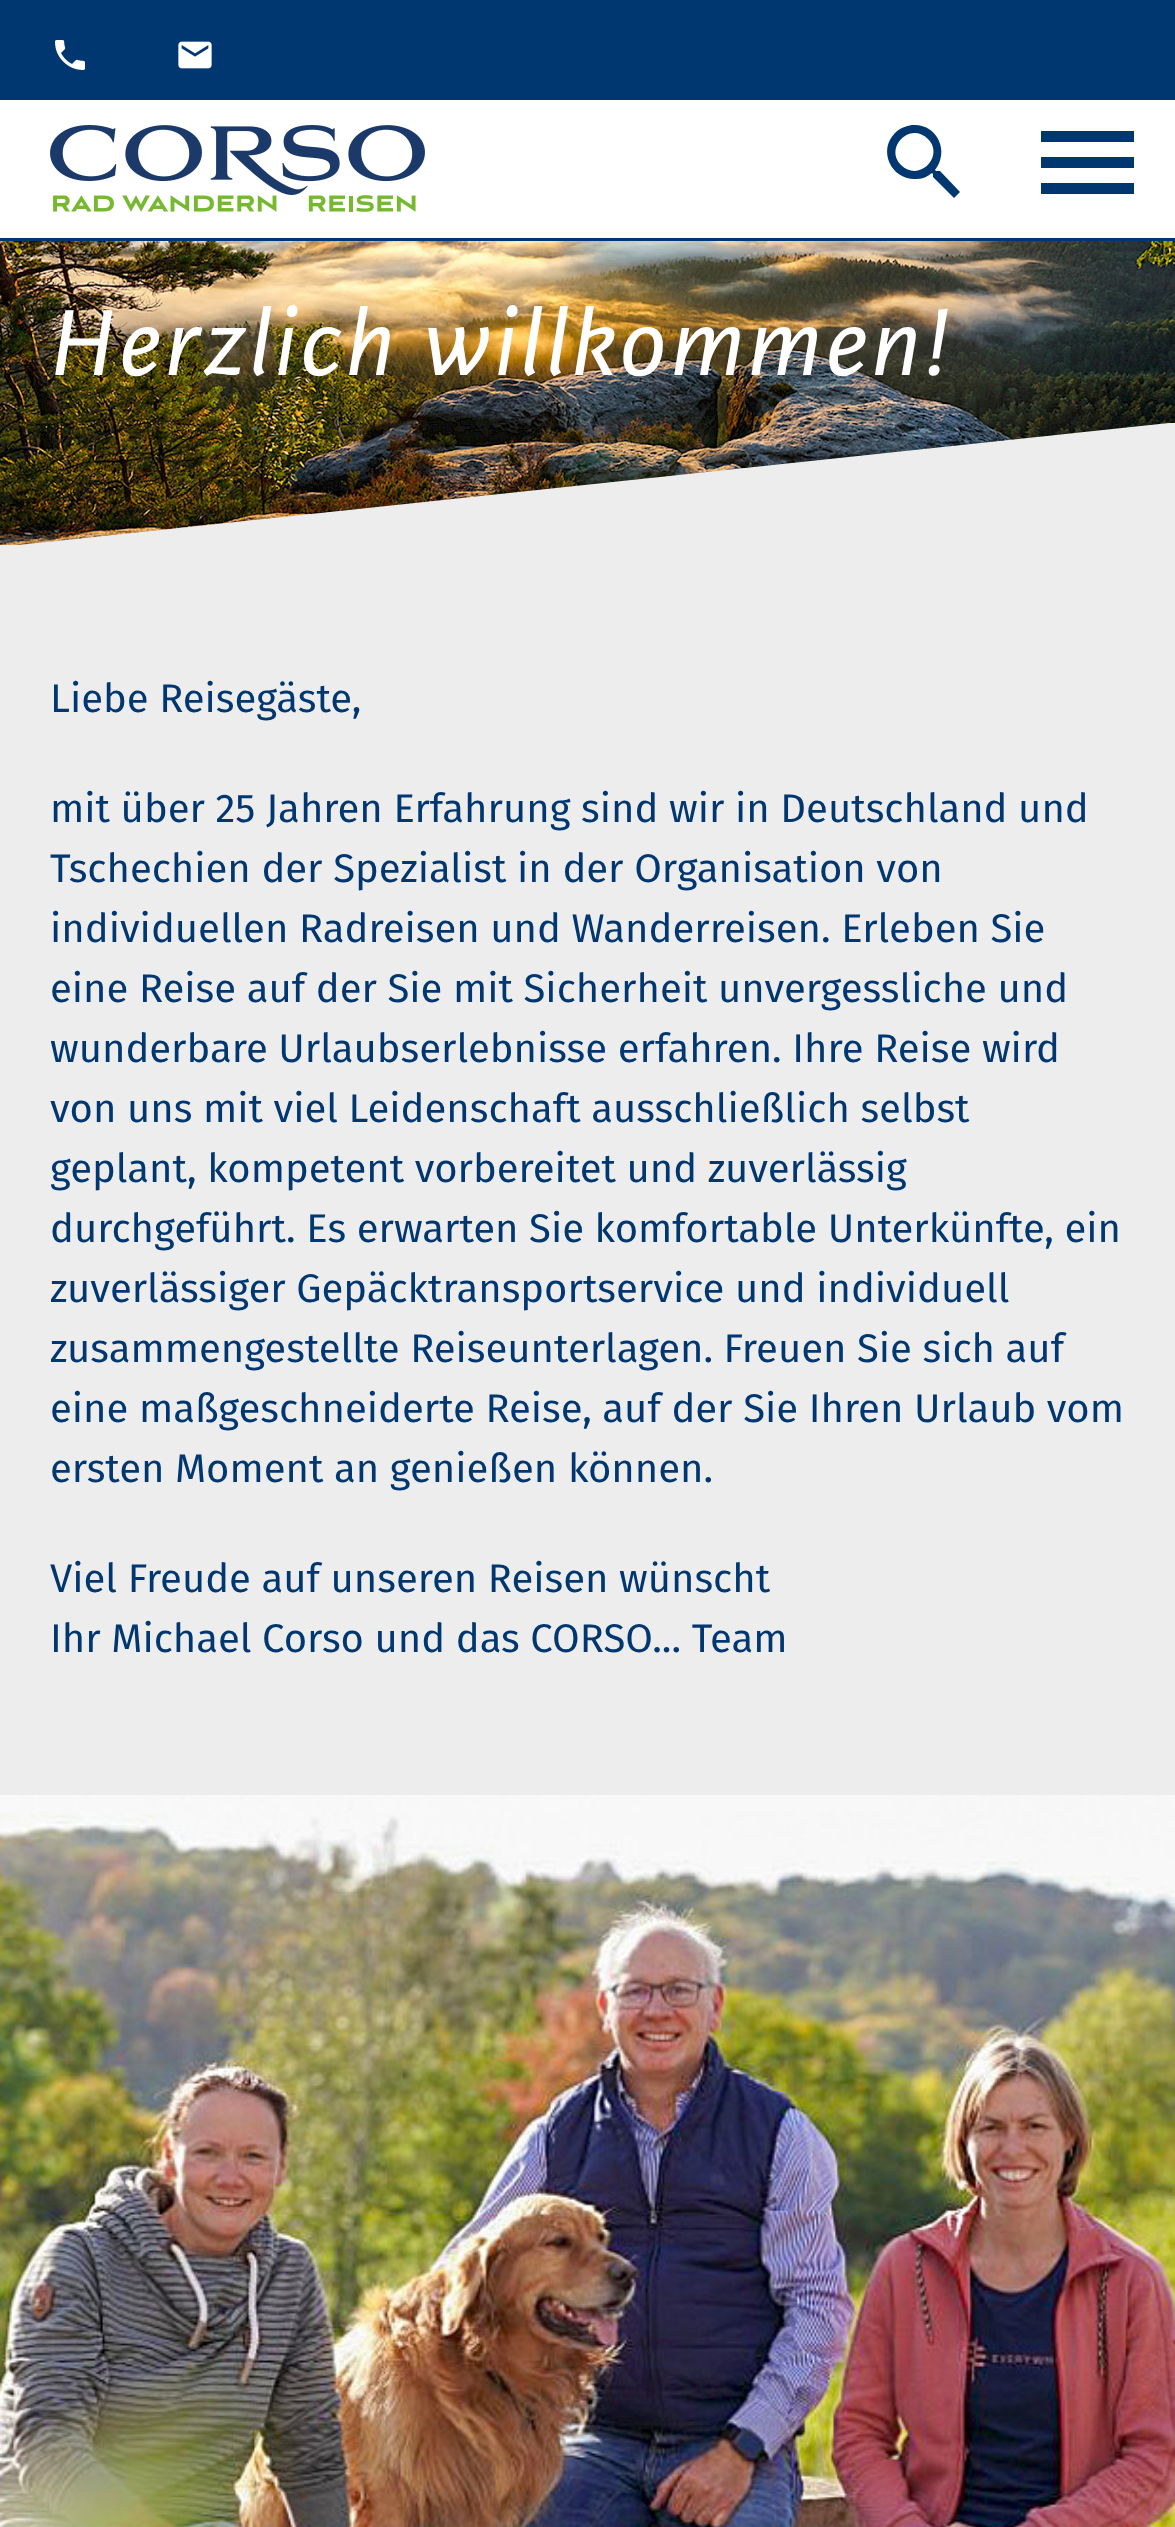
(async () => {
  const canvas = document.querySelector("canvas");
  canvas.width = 1175;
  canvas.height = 2527;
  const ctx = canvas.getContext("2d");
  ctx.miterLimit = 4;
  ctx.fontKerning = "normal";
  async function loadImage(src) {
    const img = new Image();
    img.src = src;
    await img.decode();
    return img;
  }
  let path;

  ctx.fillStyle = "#ededed";
  ctx.fillRect(0, 0, 1175, 2527);
  ctx.fillStyle = "#003770";
  ctx.fillRect(0, 0, 1175, 100);
  ctx.drawImage(await loadImage("img/1.png"), 55, 40, 30, 30);
  ctx.drawImage(await loadImage("img/2.png"), 178, 41, 34, 28);
  ctx.fillStyle = "#ffffff";
  ctx.fillRect(0, 100, 1175, 138);
  ctx.drawImage(await loadImage("img/3.png"), 50, 125, 375, 87);
  ctx.fillStyle = "#003770";
  ctx.fillRect(0, 238, 1175, 3);
  path = new Path2D("M901 165C919 183 945 156 928 139C910 121 884 148 901 165ZM940 171L960 192L954 198L933 177V174L932 173C928 176 923 179 917 179C892 181 877 151 895 133C900 128 906 126 912 125C937 123 950 151 935 170L936 171Z");
  ctx.fill(path);
  path = new Path2D("M1041 131H1134V142H1041ZM1041 168V157H1134V168ZM1041 194V183H1134V194Z");
  ctx.fill(path);
  ctx.drawImage(await loadImage("img/4.png"), 0, 241, 1175, 304);
  ctx.save();
  ctx.beginPath();
  ctx.rect(0, 125, 1175, 420);
  ctx.clip();
  ctx.fillStyle = "#ededed";
  path = new Path2D("M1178 423H1169L0 547H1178Z");
  ctx.fill(path);
  ctx.restore();
  ctx.drawImage(await loadImage("img/5.png"), 0, 1795, 1175, 16);
  ctx.drawImage(await loadImage("img/6.png"), 0, 1811, 1175, 716);
  ctx.letterSpacing = "5px";
  ctx.font = "italic 100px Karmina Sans";
  ctx.fillStyle = "#ffffff";
  ctx.fillText("Herzlich willkommen!", 50, 375);
  ctx.letterSpacing = "0px";
  ctx.font = "40px Fira Sans";
  ctx.fillStyle = "#003770";
  for (const [text, x, y] of [
    ["Liebe Reisegäste,", 50, 712],
    ["mit über 25 Jahren Erfahrung sind wir in Deutschland und", 50, 822],
    ["Tschechien der Spezialist in der Organisation von", 50, 882],
    ["individuellen Radreisen und Wanderreisen. Erleben Sie", 50, 942],
    ["eine Reise auf der Sie mit Sicherheit unvergessliche und", 50, 1002],
    ["wunderbare Urlaubserlebnisse erfahren. Ihre Reise wird", 50, 1062],
    ["von uns mit viel Leidenschaft ausschließlich selbst", 50, 1122],
    ["geplant, kompetent vorbereitet und zuverlässig", 50, 1182],
    ["durchgeführt. Es erwarten Sie komfortable Unterkünfte, ein", 50, 1242],
    ["zuverlässiger Gepäcktransportservice und individuell", 50, 1302],
    ["zusammengestellte Reiseunterlagen. Freuen Sie sich auf", 50, 1362],
    ["eine maßgeschneiderte Reise, auf der Sie Ihren Urlaub vom", 50, 1422],
    ["ersten Moment an genießen können.", 50, 1482],
    ["Viel Freude auf unseren Reisen wünscht", 50, 1592],
    ["Ihr Michael Corso und das CORSO... Team", 50, 1652],
  ]) {
    ctx.fillText(text, x, y);
  }
})();
